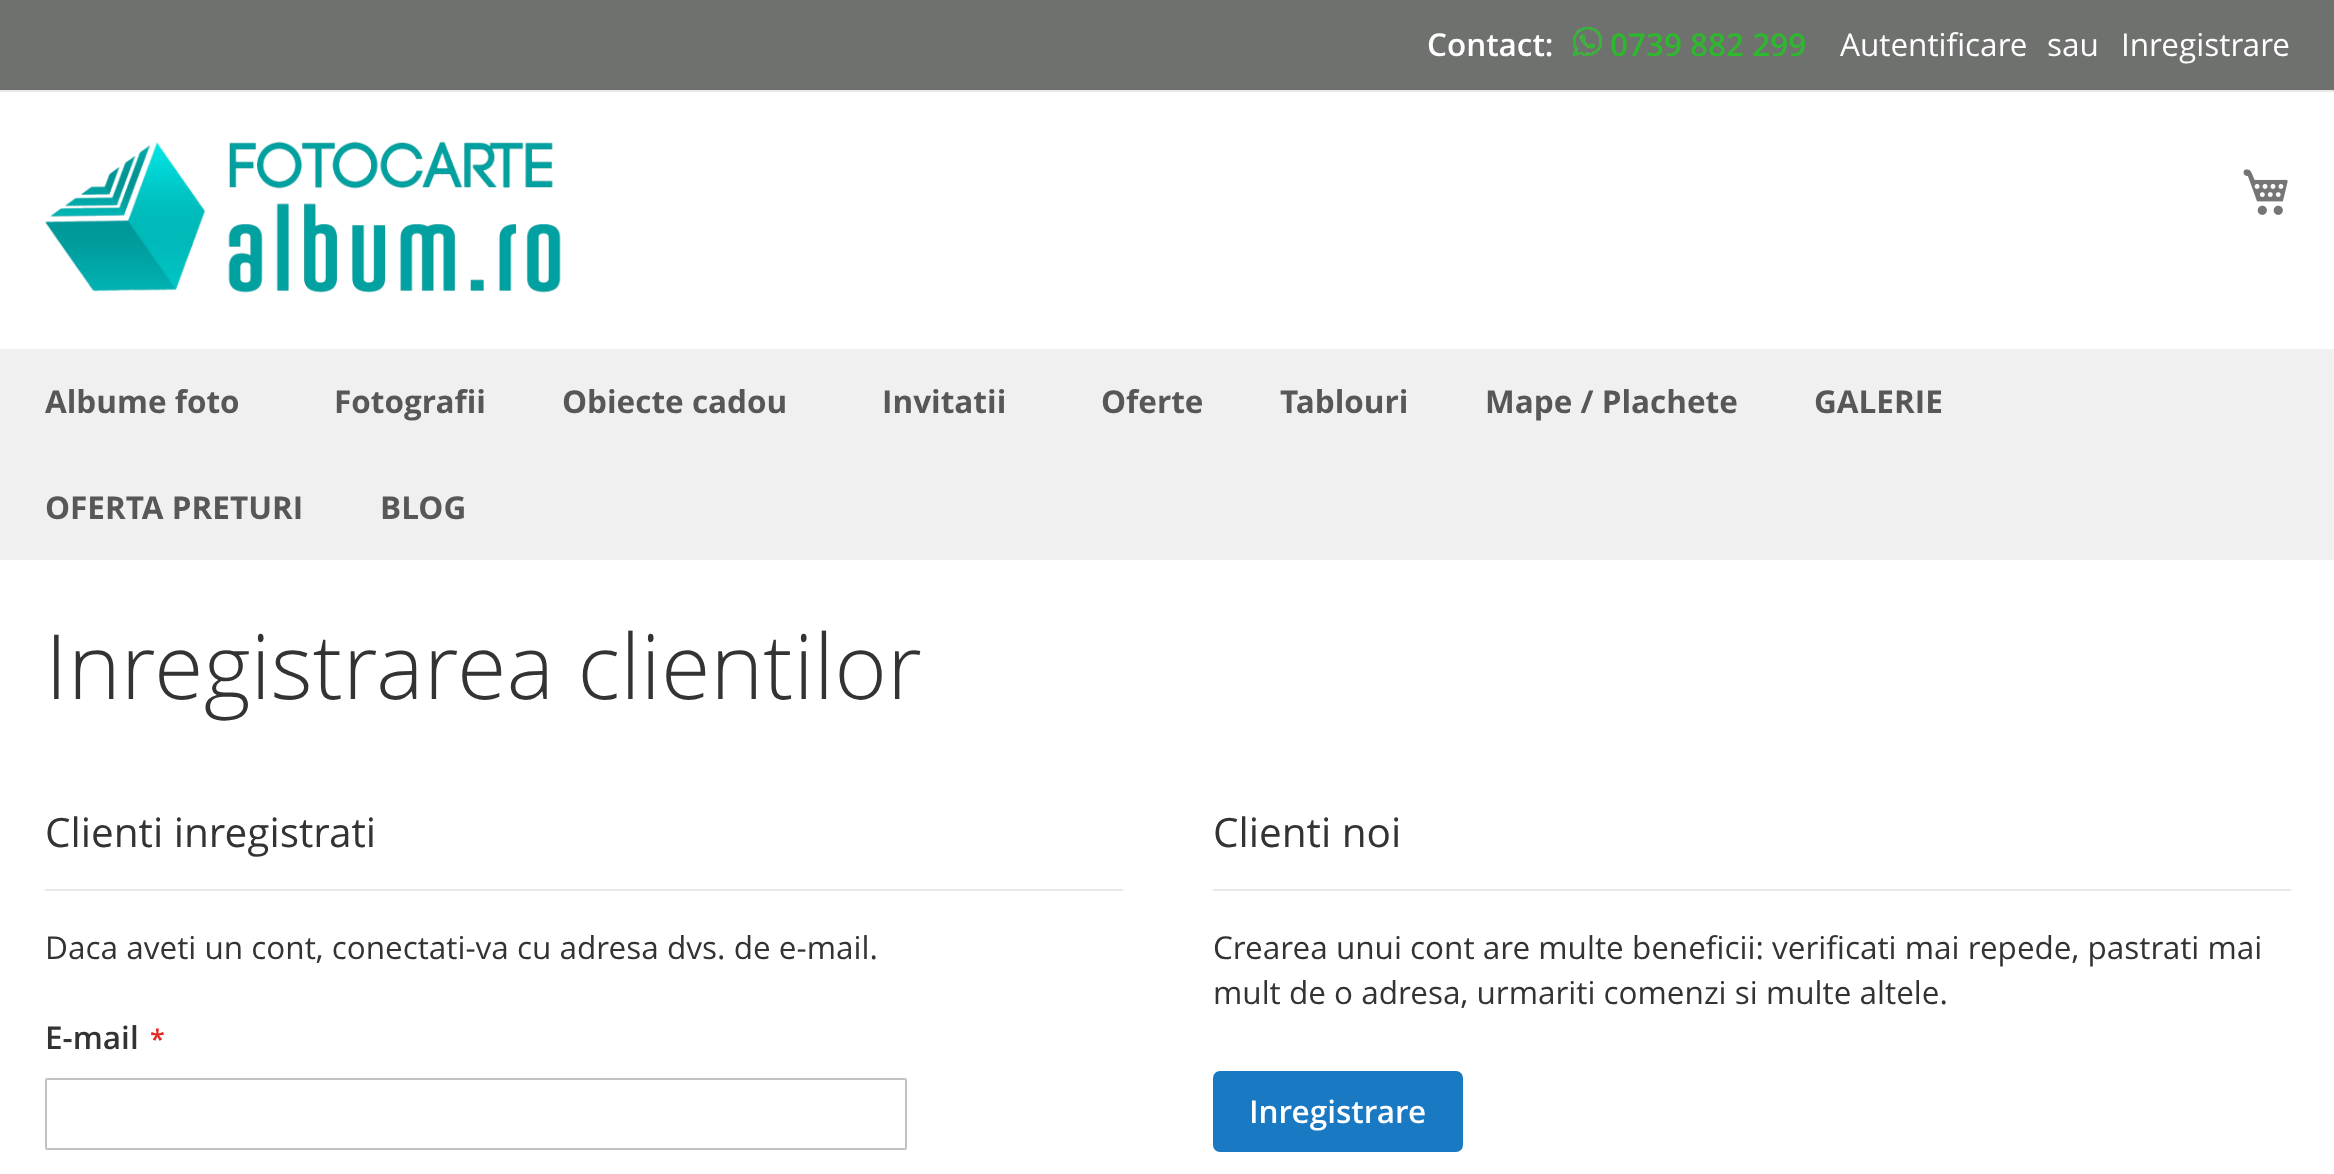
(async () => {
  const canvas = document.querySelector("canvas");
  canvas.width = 2334;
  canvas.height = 1174;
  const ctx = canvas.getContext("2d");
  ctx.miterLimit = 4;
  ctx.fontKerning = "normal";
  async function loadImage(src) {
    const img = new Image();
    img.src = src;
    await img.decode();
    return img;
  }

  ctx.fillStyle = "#ffffff";
  ctx.fillRect(0, 0, 2334, 1174);
  ctx.fillStyle = "#6e716e";
  ctx.fillRect(0, 0, 2334, 90);
  ctx.fillStyle = "#e8e8e8";
  ctx.fillRect(0, 90, 2334, 2);
  ctx.drawImage(await loadImage("img/1.png"), 1572, 27, 30, 30);
  ctx.drawImage(await loadImage("img/2.png"), 45, 141, 516, 152);
  ctx.drawImage(await loadImage("img/3.png"), 2243, 169, 45, 46);
  ctx.fillStyle = "#f0f0f0";
  ctx.fillRect(0, 349, 2334, 211);
  ctx.fillStyle = "#e8e8e8";
  ctx.fillRect(45, 889, 1078, 2);
  ctx.beginPath();
  ctx.roundRect(46, 1079, 860, 70, 1);
  ctx.strokeStyle = "#c2c2c2";
  ctx.lineWidth = 2;
  ctx.stroke();
  ctx.fillRect(1213, 889, 1078, 2);
  ctx.fillStyle = "#1979c3";
  ctx.beginPath();
  ctx.roundRect(1214, 1072, 248, 79, 6);
  ctx.fill();
  ctx.strokeStyle = "#1979c3";
  ctx.stroke();
  ctx.font = "600 31.5px Open Sans";
  ctx.fillStyle = "#ffffff";
  ctx.fillText("Contact:", 1427, 56);
  ctx.fillStyle = "#2eb82e";
  ctx.fillText("0739 882 299", 1610, 56);
  ctx.font = "31.5px Open Sans";
  ctx.fillStyle = "#ffffff";
  for (const [text, x, y] of [
    ["Autentificare", 1840, 56],
    ["sau", 2047, 56],
    ["Inregistrare", 2121, 56],
  ]) {
    ctx.fillText(text, x, y);
  }
  ctx.font = "bold 31.5px Open Sans";
  ctx.fillStyle = "#575757";
  for (const [text, x, y] of [
    ["Albume foto", 45, 413],
    ["Fotografii", 334, 413],
    ["Obiecte cadou", 562, 413],
    ["Invitatii", 882, 413],
    ["Oferte", 1101, 413],
    ["Tablouri", 1280, 413],
    ["Mape / Plachete", 1485, 413],
    ["GALERIE", 1814, 413],
    ["OFERTA PRETURI", 45, 519],
    ["BLOG", 380, 519],
  ]) {
    ctx.fillText(text, x, y);
  }
  ctx.font = "300 90px Open Sans";
  ctx.fillStyle = "#333333";
  ctx.fillText("Inregistrarea clientilor", 45, 699);
  ctx.font = "40.5px Open Sans";
  ctx.fillText("Clienti inregistrati", 45, 847);
  ctx.font = "31.5px Open Sans";
  ctx.fillText("Daca aveti un cont, conectati-va cu adresa dvs. de e-mail.", 45, 959);
  ctx.font = "600 31.5px Open Sans";
  ctx.fillText("E-mail", 45, 1049);
  ctx.font = "600 27px Open Sans";
  ctx.fillStyle = "#e02b27";
  ctx.fillText("*", 150, 1049);
  ctx.font = "40.5px Open Sans";
  ctx.fillStyle = "#333333";
  ctx.fillText("Clienti noi", 1213, 847);
  ctx.font = "31.5px Open Sans";
  ctx.fillText("Crearea unui cont are multe beneficii: verificati mai repede, pastrati mai", 1213, 959);
  ctx.fillText("mult de o adresa, urmariti comenzi si multe altele.", 1213, 1004);
  ctx.font = "600 31.5px Open Sans";
  ctx.fillStyle = "#ffffff";
  ctx.fillText("Inregistrare", 1249, 1123);
})();
